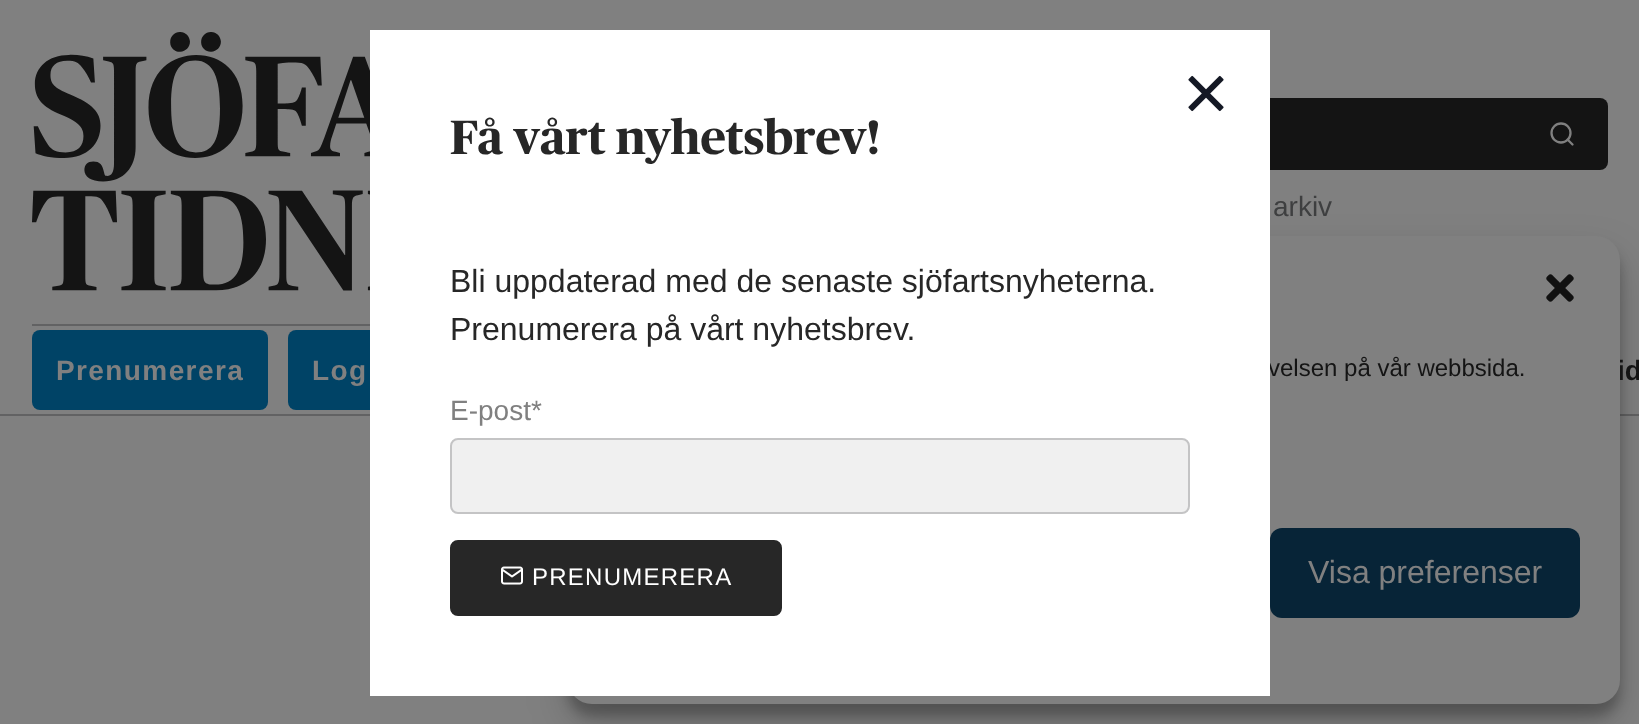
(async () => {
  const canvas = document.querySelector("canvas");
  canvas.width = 1639;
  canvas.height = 724;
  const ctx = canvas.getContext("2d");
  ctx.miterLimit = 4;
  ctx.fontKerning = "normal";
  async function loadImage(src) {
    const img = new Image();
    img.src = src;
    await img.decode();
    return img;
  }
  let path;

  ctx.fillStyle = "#808080";
  ctx.fillRect(0, 0, 1639, 724);
  ctx.drawImage(await loadImage("img/3.png"), 32, 32, 338, 259);
  ctx.fillStyle = "#141414";
  ctx.beginPath();
  ctx.roundRect(854, 98, 754, 72, 8);
  ctx.fill();
  ctx.beginPath();
  ctx.arc(1561, 133, 9.5, 0, Math.PI * 2);
  ctx.strokeStyle = "#808080";
  ctx.lineWidth = 2.3;
  ctx.stroke();
  path = new Path2D("M1572.5 144.5L1567.5 139.5");
  ctx.lineCap = "round";
  ctx.lineJoin = "round";
  ctx.stroke(path);
  ctx.fillStyle = "#626263";
  ctx.fillRect(32, 324, 338, 2);
  ctx.fillStyle = "#004366";
  ctx.beginPath();
  ctx.roundRect(32, 330, 236, 80, 8);
  ctx.fill();
  ctx.beginPath();
  ctx.roundRect(288, 330, 176, 80, 8);
  ctx.fill();
  ctx.fillStyle = "#626263";
  ctx.fillRect(0, 414, 1639, 2);
  ctx.fillStyle = "rgba(0, 0, 0, 0.23)";
  ctx.filter = "blur(6px)";
  ctx.beginPath();
  ctx.roundRect(568, 248, 1052, 468, 24);
  ctx.fill();
  ctx.filter = "none";
  ctx.fillStyle = "rgba(0, 0, 0, 0.19)";
  ctx.filter = "blur(20px)";
  ctx.beginPath();
  ctx.roundRect(568, 256, 1052, 468, 24);
  ctx.fill();
  ctx.filter = "none";
  ctx.font = "28px Liberation Sans";
  ctx.fillStyle = "#3e3f40";
  ctx.fillText("arkiv", 1273, 216);
  ctx.letterSpacing = "1.4px";
  ctx.font = "bold 28px Liberation Sans";
  ctx.fillStyle = "#808080";
  ctx.fillText("Prenumerera", 56, 380);
  ctx.fillText("Log", 312, 380);
  ctx.letterSpacing = "0px";
  ctx.fillStyle = "#141414";
  ctx.fillText("id", 1617, 380);
  ctx.fillStyle = "#808080";
  ctx.beginPath();
  ctx.roundRect(568, 236, 1052, 468, 24);
  ctx.fill();
  ctx.drawImage(await loadImage("img/4.png"), 1546, 274, 28, 28);
  ctx.font = "24px Liberation Sans";
  ctx.fillStyle = "#141414";
  ctx.fillText("velsen på vår webbsida.", 1268, 376);
  ctx.fillStyle = "#ffffff";
  ctx.fillRect(370, 30, 900, 666);
  ctx.fillStyle = "#272727";
  ctx.beginPath();
  ctx.roundRect(451, 541, 330, 74, 7);
  ctx.fill();
  ctx.strokeStyle = "#272727";
  ctx.lineWidth = 2;
  ctx.lineJoin = "miter";
  ctx.stroke();
  ctx.drawImage(await loadImage("img/2.png"), 501, 566, 22, 19);
  ctx.drawImage(await loadImage("img/1.png"), 1188, 75, 36, 37);
  ctx.letterSpacing = "1.25px";
  ctx.fillStyle = "#ffffff";
  ctx.fillText("PRENUMERERA", 532, 585);
  ctx.fillStyle = "#f0f0f0";
  ctx.beginPath();
  ctx.roundRect(451, 439, 738, 74, 7);
  ctx.fill();
  ctx.strokeStyle = "#c4c4c5";
  ctx.stroke();
  ctx.letterSpacing = "0px";
  ctx.font = "28px Liberation Sans";
  ctx.fillStyle = "#808080";
  ctx.fillText("E-post*", 450, 420);
  ctx.font = "32px Liberation Sans";
  ctx.fillStyle = "#272727";
  ctx.fillText("Prenumerera på vårt nyhetsbrev.", 450, 340);
  ctx.fillText("Bli uppdaterad med de senaste sjöfartsnyheterna.", 450, 292);
  ctx.font = "bold 48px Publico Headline";
  ctx.fillText("Få vårt nyhetsbrev!", 450, 154);
  ctx.fillStyle = "#072437";
  ctx.beginPath();
  ctx.roundRect(1270, 528, 310, 90, 12);
  ctx.fill();
  ctx.font = "32px Liberation Sans";
  ctx.fillStyle = "#808080";
  ctx.fillText("Visa preferenser", 1308, 583);
})();
